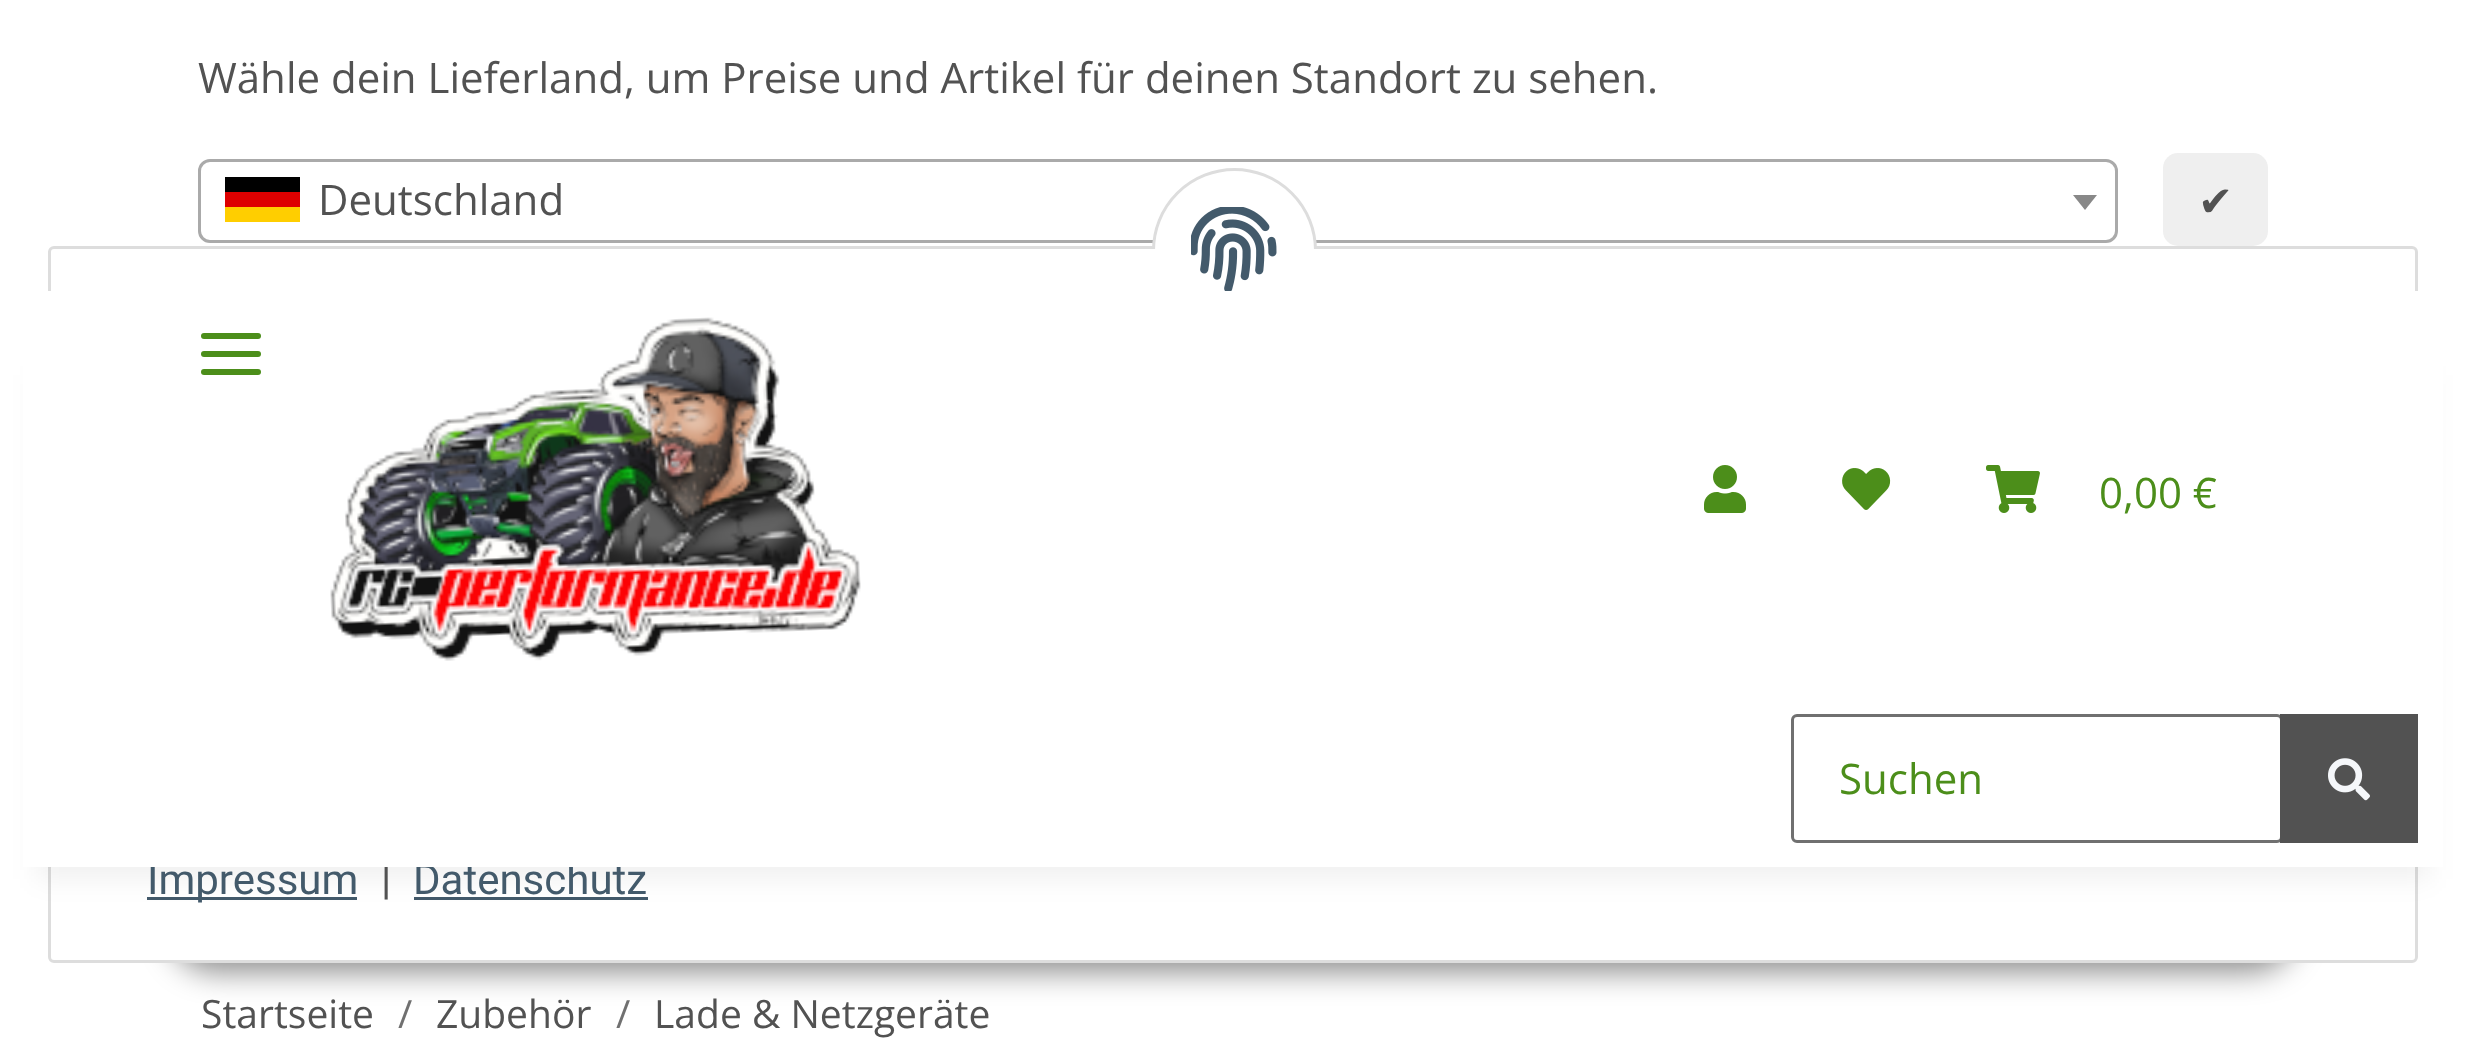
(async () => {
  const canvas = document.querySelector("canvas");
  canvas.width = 2466;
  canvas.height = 1057;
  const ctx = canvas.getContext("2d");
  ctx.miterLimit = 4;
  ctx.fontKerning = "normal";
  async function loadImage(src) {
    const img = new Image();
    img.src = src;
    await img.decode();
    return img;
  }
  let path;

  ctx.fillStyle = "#ffffff";
  ctx.fillRect(0, 0, 2466, 1057);
  ctx.beginPath();
  ctx.roundRect(199.5, 160.5, 1917, 81, 10.5);
  ctx.strokeStyle = "#aaaaaa";
  ctx.lineWidth = 3;
  ctx.stroke();
  for (const [x, y, w, h, color] of [
    [225, 177, 75, 15, "#000000"],
    [225, 192, 75, 15, "#dd0000"],
    [225, 207, 75, 15, "#ffce00"],
  ]) {
    ctx.fillStyle = color;
    ctx.fillRect(x, y, w, h);
  }
  ctx.fillStyle = "#888888";
  path = new Path2D("M2073 195H2097L2085 210Z");
  ctx.fill(path);
  ctx.fillStyle = "#efefef";
  ctx.beginPath();
  ctx.roundRect(2163, 153, 105, 93, 15);
  ctx.fill();
  ctx.fillStyle = "rgba(0, 0, 0, 0.45)";
  ctx.filter = "blur(15px)";
  ctx.beginPath();
  ctx.roundRect(168, 876, 2130, 96, 48);
  ctx.fill();
  ctx.filter = "none";
  ctx.fillStyle = "#ffffff";
  ctx.beginPath();
  ctx.roundRect(49.5, 247.5, 2367, 714, 4.5);
  ctx.fill();
  ctx.strokeStyle = "#dddddd";
  ctx.stroke();
  ctx.fillStyle = "#435a6b";
  ctx.fillRect(147, 897, 210, 3);
  ctx.fillRect(414, 897, 234, 3);
  ctx.fillStyle = "rgba(0, 0, 0, 0.06)";
  ctx.filter = "blur(13.5px)";
  ctx.beginPath();
  ctx.rect(36, 375, 2394, 504);
  ctx.fill();
  ctx.filter = "none";
  ctx.fillStyle = "#ffffff";
  ctx.beginPath();
  ctx.arc(1234.5, 250.5, 81, 0, Math.PI * 2);
  ctx.fill();
  ctx.stroke();
  ctx.fillRect(1152, 249, 165, 42);
  ctx.drawImage(await loadImage("img/6.png"), 1191, 207, 86, 84);
  ctx.font = "42px Open Sans";
  ctx.fillStyle = "#525252";
  ctx.fillText("Wähle dein Lieferland, um Preise und Artikel für deinen Standort zu sehen.", 198, 93);
  ctx.fillText("Deutschland", 318, 215);
  ctx.font = "42px DejaVu Sans";
  ctx.fillText("✔", 2198, 216);
  ctx.font = "42px Roboto";
  ctx.fillStyle = "#435a6b";
  ctx.fillText("Impressum", 147, 894);
  ctx.fillStyle = "#525252";
  ctx.fillText("|", 381, 894);
  ctx.fillStyle = "#435a6b";
  ctx.fillText("Datenschutz", 413, 894);
  ctx.fillStyle = "#ffffff";
  ctx.fillRect(23, 291, 2420, 576);
  ctx.drawImage(await loadImage("img/1.png"), 330, 317, 531, 344);
  ctx.beginPath();
  ctx.roundRect(1792.5, 715.5, 489, 126, 4.5);
  ctx.strokeStyle = "#707070";
  ctx.stroke();
  ctx.fillStyle = "#525252";
  ctx.fillRect(2280, 714, 138, 129);
  ctx.drawImage(await loadImage("img/5.png"), 2328, 758, 42, 43);
  ctx.font = "42px Open Sans";
  ctx.fillStyle = "#4c8e1a";
  ctx.fillText("Suchen", 1839, 794);
  ctx.drawImage(await loadImage("img/4.png"), 1986, 465, 54, 48);
  ctx.drawImage(await loadImage("img/3.png"), 1842, 468, 49, 42);
  ctx.beginPath();
  ctx.roundRect(201, 369, 60, 6, 3);
  ctx.fill();
  ctx.beginPath();
  ctx.roundRect(201, 333, 60, 6, 3);
  ctx.fill();
  ctx.beginPath();
  ctx.roundRect(201, 351, 60, 6, 3);
  ctx.fill();
  ctx.fillText("0,00 €", 2099, 508);
  ctx.drawImage(await loadImage("img/2.png"), 1704, 465, 42, 48);
  ctx.font = "39px Open Sans";
  ctx.fillStyle = "#525252";
  ctx.fillText("Startseite", 201, 1028);
  ctx.fillStyle = "#707070";
  ctx.fillText("/", 398, 1028);
  ctx.fillStyle = "#525252";
  ctx.fillText("Zubehör", 436, 1028);
  ctx.fillStyle = "#707070";
  ctx.fillText("/", 616, 1028);
  ctx.fillStyle = "#525252";
  ctx.fillText("Lade & Netzgeräte", 654, 1028);
})();
